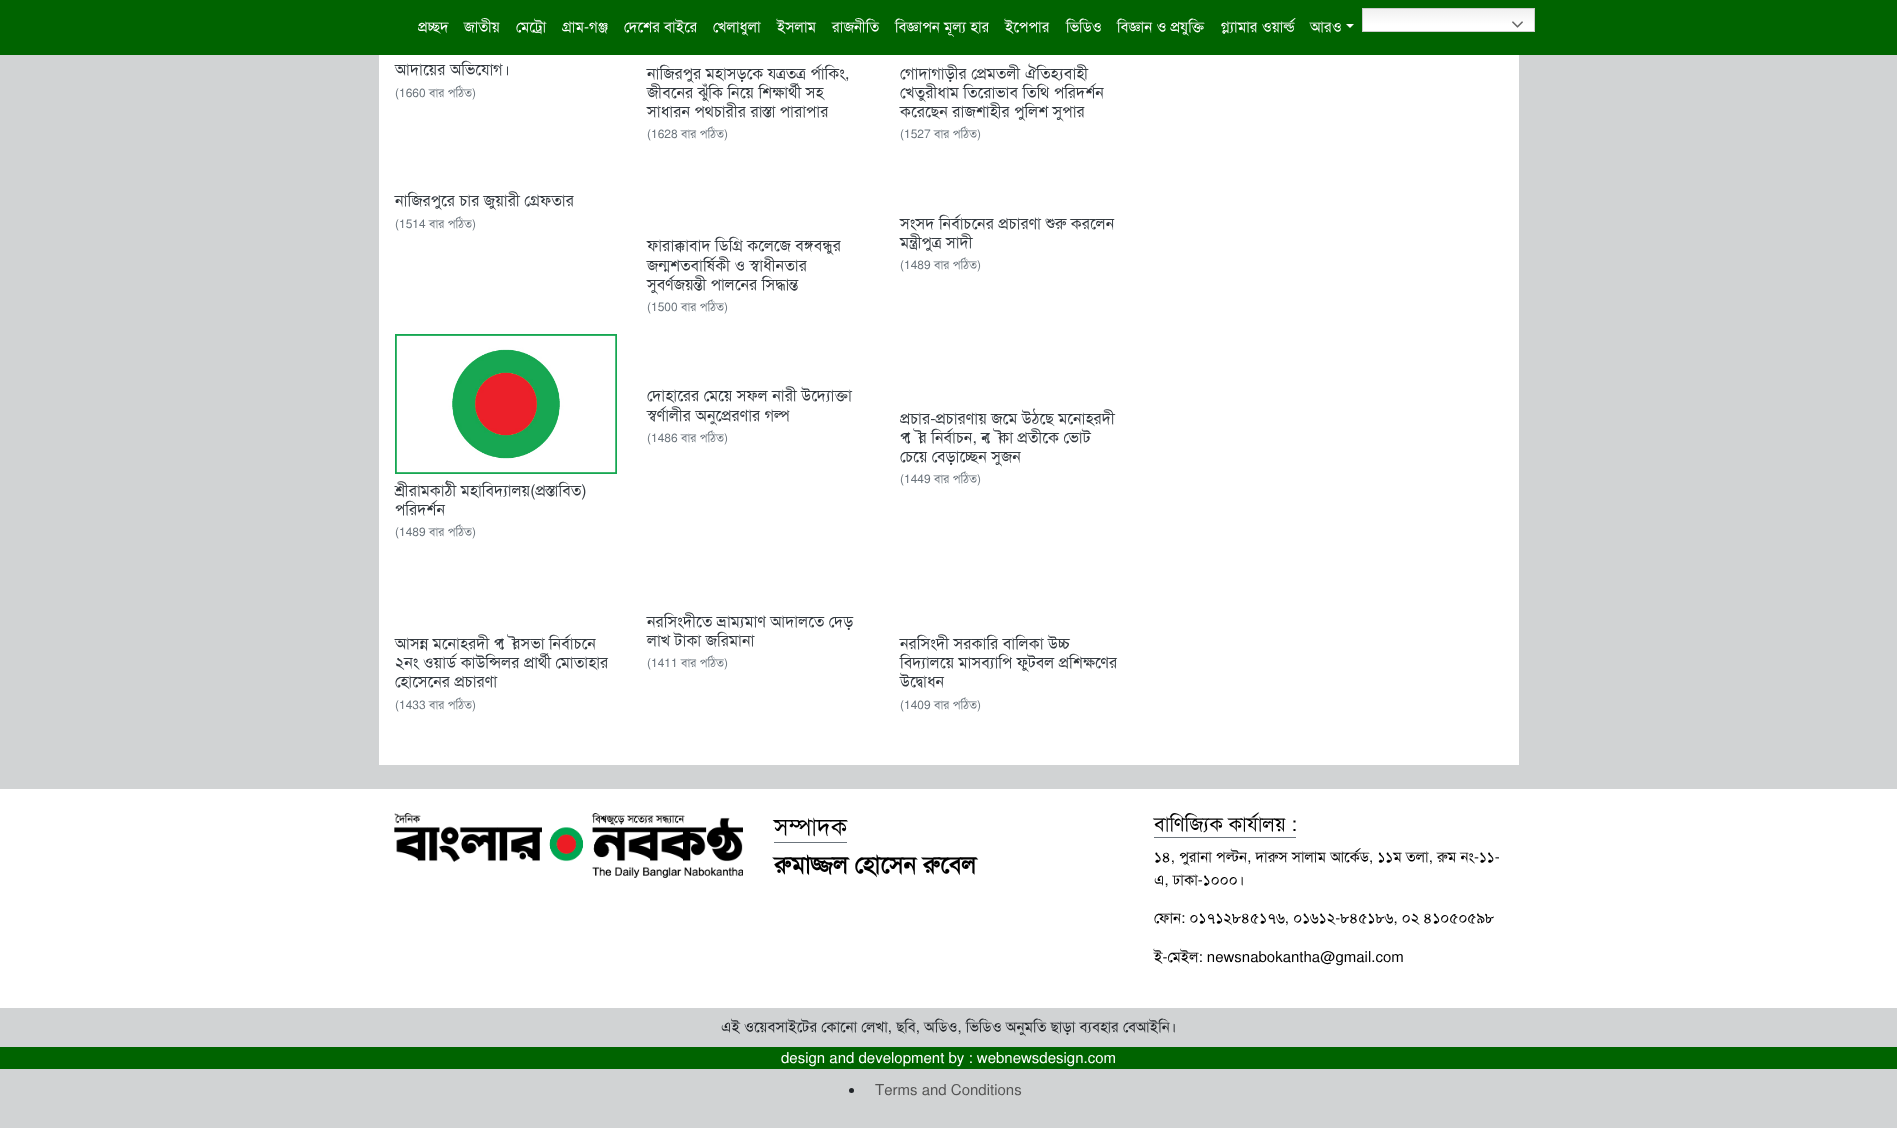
(async () => {
  const canvas = document.querySelector("canvas");
  canvas.width = 1897;
  canvas.height = 1128;
  const ctx = canvas.getContext("2d");
  ctx.miterLimit = 4;
  ctx.fontKerning = "normal";
  async function loadImage(src) {
    const img = new Image();
    img.src = src;
    await img.decode();
    return img;
  }
  let gradient, path;

  ctx.fillStyle = "#d1d3d4";
  ctx.fillRect(0, 0, 1897, 1128);
  ctx.fillStyle = "#006400";
  ctx.fillRect(0, 0, 1897, 55);
  ctx.fillStyle = "#ffffff";
  path = new Path2D("M1346 24H1354L1350 28Z");
  ctx.fill(path);
  gradient = ctx.createLinearGradient(1449, 8, 1449, 32);
  gradient.addColorStop(0, "#efefef");
  gradient.addColorStop(0.7, "#ffffff");
  ctx.fillStyle = gradient;
  ctx.fillRect(1363, 9, 171, 22);
  ctx.strokeStyle = "#cccccc";
  ctx.strokeRect(1362.5, 8.5, 172, 23);
  ctx.drawImage(await loadImage("img/1.png"), 1512, 21, 11, 7);
  ctx.fillStyle = "#ffffff";
  ctx.fillRect(379, 55, 1140, 710);
  ctx.drawImage(await loadImage("img/2.png"), 395, 334, 222, 140);
  ctx.fillRect(0, 789, 1897, 219);
  ctx.drawImage(await loadImage("img/3.png"), 394, 813, 349, 65);
  for (const [x, y, w, h, color] of [
    [774, 842, 73, 1, "#6c757d"],
    [1154, 837, 142, 1, "#6c757d"],
    [0, 1047, 1897, 22, "#006400"],
  ]) {
    ctx.fillStyle = color;
    ctx.fillRect(x, y, w, h);
  }
  ctx.fillStyle = "#212529";
  ctx.beginPath();
  ctx.arc(851.5, 1090.5, 2.5, 0, Math.PI * 2);
  ctx.fill();
  ctx.font = "15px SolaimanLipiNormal";
  ctx.fillStyle = "#ffffff";
  for (const [text, x, y] of [
    ["প্রচ্ছদ", 418, 32],
    ["জাতীয়", 464, 32],
    ["মেট্রো", 516, 32],
    ["গ্রাম-গঞ্জ", 562, 32],
    ["দেশের বাইরে", 624, 32],
    ["খেলাধুলা", 713, 32],
    ["ইসলাম", 777, 32],
    ["রাজনীতি", 832, 32],
    ["বিজ্ঞাপন মূল্য হার", 895, 32],
    ["ইপেপার", 1005, 32],
    ["ভিডিও", 1066, 32],
    ["বিজ্ঞান ও প্রযুক্তি", 1117, 32],
    ["গ্ল্যামার ওয়ার্ল্ড", 1221, 32],
    ["আরও", 1310, 32],
  ]) {
    ctx.fillText(text, x, y);
  }
  ctx.font = "16px SolaimanLipiNormal";
  ctx.fillStyle = "#343a40";
  ctx.fillText("আদায়ের অভিযোগ।", 395, 75);
  ctx.font = "12px SolaimanLipiNormal";
  ctx.fillStyle = "#6c757d";
  ctx.fillText("(1660 বার পঠিত)", 395, 97);
  ctx.font = "16px SolaimanLipiNormal";
  ctx.fillStyle = "#343a40";
  for (const [text, x, y] of [
    ["নাজিরপুর মহাসড়কে যত্রতত্র র্পাকিং,", 647, 79],
    ["জীবনের ঝুঁকি নিয়ে শিক্ষার্থী সহ", 647, 98],
    ["সাধারন পথচারীর রাস্তা পারাপার", 647, 117],
  ]) {
    ctx.fillText(text, x, y);
  }
  ctx.font = "12px SolaimanLipiNormal";
  ctx.fillStyle = "#6c757d";
  ctx.fillText("(1628 বার পঠিত)", 647, 138);
  ctx.font = "16px SolaimanLipiNormal";
  ctx.fillStyle = "#343a40";
  for (const [text, x, y] of [
    ["গোদাগাড়ীর প্রেমতলী ঐতিহ্যবাহী", 900, 79],
    ["খেতুরীধাম তিরোভাব তিথি পরিদর্শন", 900, 98],
    ["করেছেন রাজশাহীর পুলিশ সুপার", 900, 117],
  ]) {
    ctx.fillText(text, x, y);
  }
  ctx.font = "12px SolaimanLipiNormal";
  ctx.fillStyle = "#6c757d";
  ctx.fillText("(1527 বার পঠিত)", 900, 138);
  ctx.font = "16px SolaimanLipiNormal";
  ctx.fillStyle = "#343a40";
  ctx.fillText("নাজিরপুরে চার জুয়ারী গ্রেফতার", 395, 206);
  ctx.font = "12px SolaimanLipiNormal";
  ctx.fillStyle = "#6c757d";
  ctx.fillText("(1514 বার পঠিত)", 395, 228);
  ctx.font = "16px SolaimanLipiNormal";
  ctx.fillStyle = "#343a40";
  for (const [text, x, y] of [
    ["ফারাক্কাবাদ ডিগ্রি কলেজে বঙ্গবন্ধুর", 647, 251],
    ["জন্মশতবার্ষিকী ও স্বাধীনতার", 647, 271],
    ["সুবর্ণজয়ন্তী পালনের সিদ্ধান্ত", 647, 290],
  ]) {
    ctx.fillText(text, x, y);
  }
  ctx.font = "12px SolaimanLipiNormal";
  ctx.fillStyle = "#6c757d";
  ctx.fillText("(1500 বার পঠিত)", 647, 311);
  ctx.font = "16px SolaimanLipiNormal";
  ctx.fillStyle = "#343a40";
  ctx.fillText("সংসদ নির্বাচনের প্রচারণা শুরু করলেন", 900, 229);
  ctx.fillText("মন্ত্রীপুত্র সাদী", 900, 248);
  ctx.font = "12px SolaimanLipiNormal";
  ctx.fillStyle = "#6c757d";
  ctx.fillText("(1489 বার পঠিত)", 900, 269);
  ctx.font = "16px SolaimanLipiNormal";
  ctx.fillStyle = "#343a40";
  ctx.fillText("দোহারের মেয়ে সফল নারী উদ্যোক্তা", 647, 401);
  ctx.fillText("স্বর্ণালীর অনুপ্রেরণার গল্প", 647, 421);
  ctx.font = "12px SolaimanLipiNormal";
  ctx.fillStyle = "#6c757d";
  ctx.fillText("(1486 বার পঠিত)", 647, 442);
  ctx.font = "16px SolaimanLipiNormal";
  ctx.fillStyle = "#343a40";
  for (const [text, x, y] of [
    ["প্রচার-প্রচারণায় জমে উঠছে মনোহরদী", 900, 424],
    ["পৌর নির্বাচন, নৌকা প্রতীকে ভোট", 900, 443],
    ["চেয়ে বেড়াচ্ছেন সুজন", 900, 462],
  ]) {
    ctx.fillText(text, x, y);
  }
  ctx.font = "12px SolaimanLipiNormal";
  ctx.fillStyle = "#6c757d";
  ctx.fillText("(1449 বার পঠিত)", 900, 483);
  ctx.font = "16px SolaimanLipiNormal";
  ctx.fillStyle = "#343a40";
  ctx.fillText("শ্রীরামকাঠী মহাবিদ্যালয়(প্রস্তাবিত)", 395, 496);
  ctx.fillText("পরিদর্শন", 395, 515);
  ctx.font = "12px SolaimanLipiNormal";
  ctx.fillStyle = "#6c757d";
  ctx.fillText("(1489 বার পঠিত)", 395, 536);
  ctx.font = "16px SolaimanLipiNormal";
  ctx.fillStyle = "#343a40";
  for (const [text, x, y] of [
    ["আসন্ন মনোহরদী পৌরসভা নির্বাচনে", 395, 649],
    ["২নং ওয়ার্ড কাউন্সিলর প্রার্থী মোতাহার", 395, 668],
    ["হোসেনের প্রচারণা", 395, 687],
  ]) {
    ctx.fillText(text, x, y);
  }
  ctx.font = "12px SolaimanLipiNormal";
  ctx.fillStyle = "#6c757d";
  ctx.fillText("(1433 বার পঠিত)", 395, 709);
  ctx.font = "16px SolaimanLipiNormal";
  ctx.fillStyle = "#343a40";
  ctx.fillText("নরসিংদীতে ভ্রাম্যমাণ আদালতে দেড়", 647, 627);
  ctx.fillText("লাখ টাকা জরিমানা", 647, 646);
  ctx.font = "12px SolaimanLipiNormal";
  ctx.fillStyle = "#6c757d";
  ctx.fillText("(1411 বার পঠিত)", 647, 667);
  ctx.font = "16px SolaimanLipiNormal";
  ctx.fillStyle = "#343a40";
  for (const [text, x, y] of [
    ["নরসিংদী সরকারি বালিকা উচ্চ", 900, 649],
    ["বিদ্যালয়ে মাসব্যাপি ফুটবল প্রশিক্ষণের", 900, 668],
    ["উদ্বোধন", 900, 687],
  ]) {
    ctx.fillText(text, x, y);
  }
  ctx.font = "12px SolaimanLipiNormal";
  ctx.fillStyle = "#6c757d";
  ctx.fillText("(1409 বার পঠিত)", 900, 709);
  ctx.font = "24px SolaimanLipiNormal";
  ctx.fillStyle = "#000000";
  ctx.fillText("সম্পাদক", 774, 835);
  ctx.font = "bold 24px SolaimanLipiNormal";
  ctx.fillText("রুমাজ্জল হোসেন রুবেল", 774, 873);
  ctx.font = "20px SolaimanLipiNormal";
  ctx.fillText("বাণিজ্যিক কার্যালয় :", 1154, 831);
  ctx.font = "15px SolaimanLipiNormal";
  for (const [text, x, y] of [
    ["১৪, পুরানা পল্টন, দারুস সালাম আর্কেড, ১১ম তলা, রুম নং-১১-", 1154, 862],
    ["এ, ঢাকা-১০০০।", 1154, 885],
    ["ফোন: ০১৭১২৮৪৫১৭৬, ০১৬১২-৮৪৫১৮৬, ০২ ৪১০৫০৫৯৮", 1154, 923],
    ["ই-মেইল: newsnabokantha@gmail.com", 1154, 962],
  ]) {
    ctx.fillText(text, x, y);
  }
  ctx.fillStyle = "#212529";
  ctx.fillText("এই ওয়েবসাইটের কোনো লেখা, ছবি, অডিও, ভিডিও অনুমতি ছাড়া ব্যবহার বেআইনি।", 721, 1032);
  ctx.fillStyle = "#ffffff";
  ctx.fillText("design and development by : webnewsdesign.com", 781, 1063);
  ctx.fillStyle = "#555555";
  ctx.fillText("Terms and Conditions", 875, 1095);
})();
